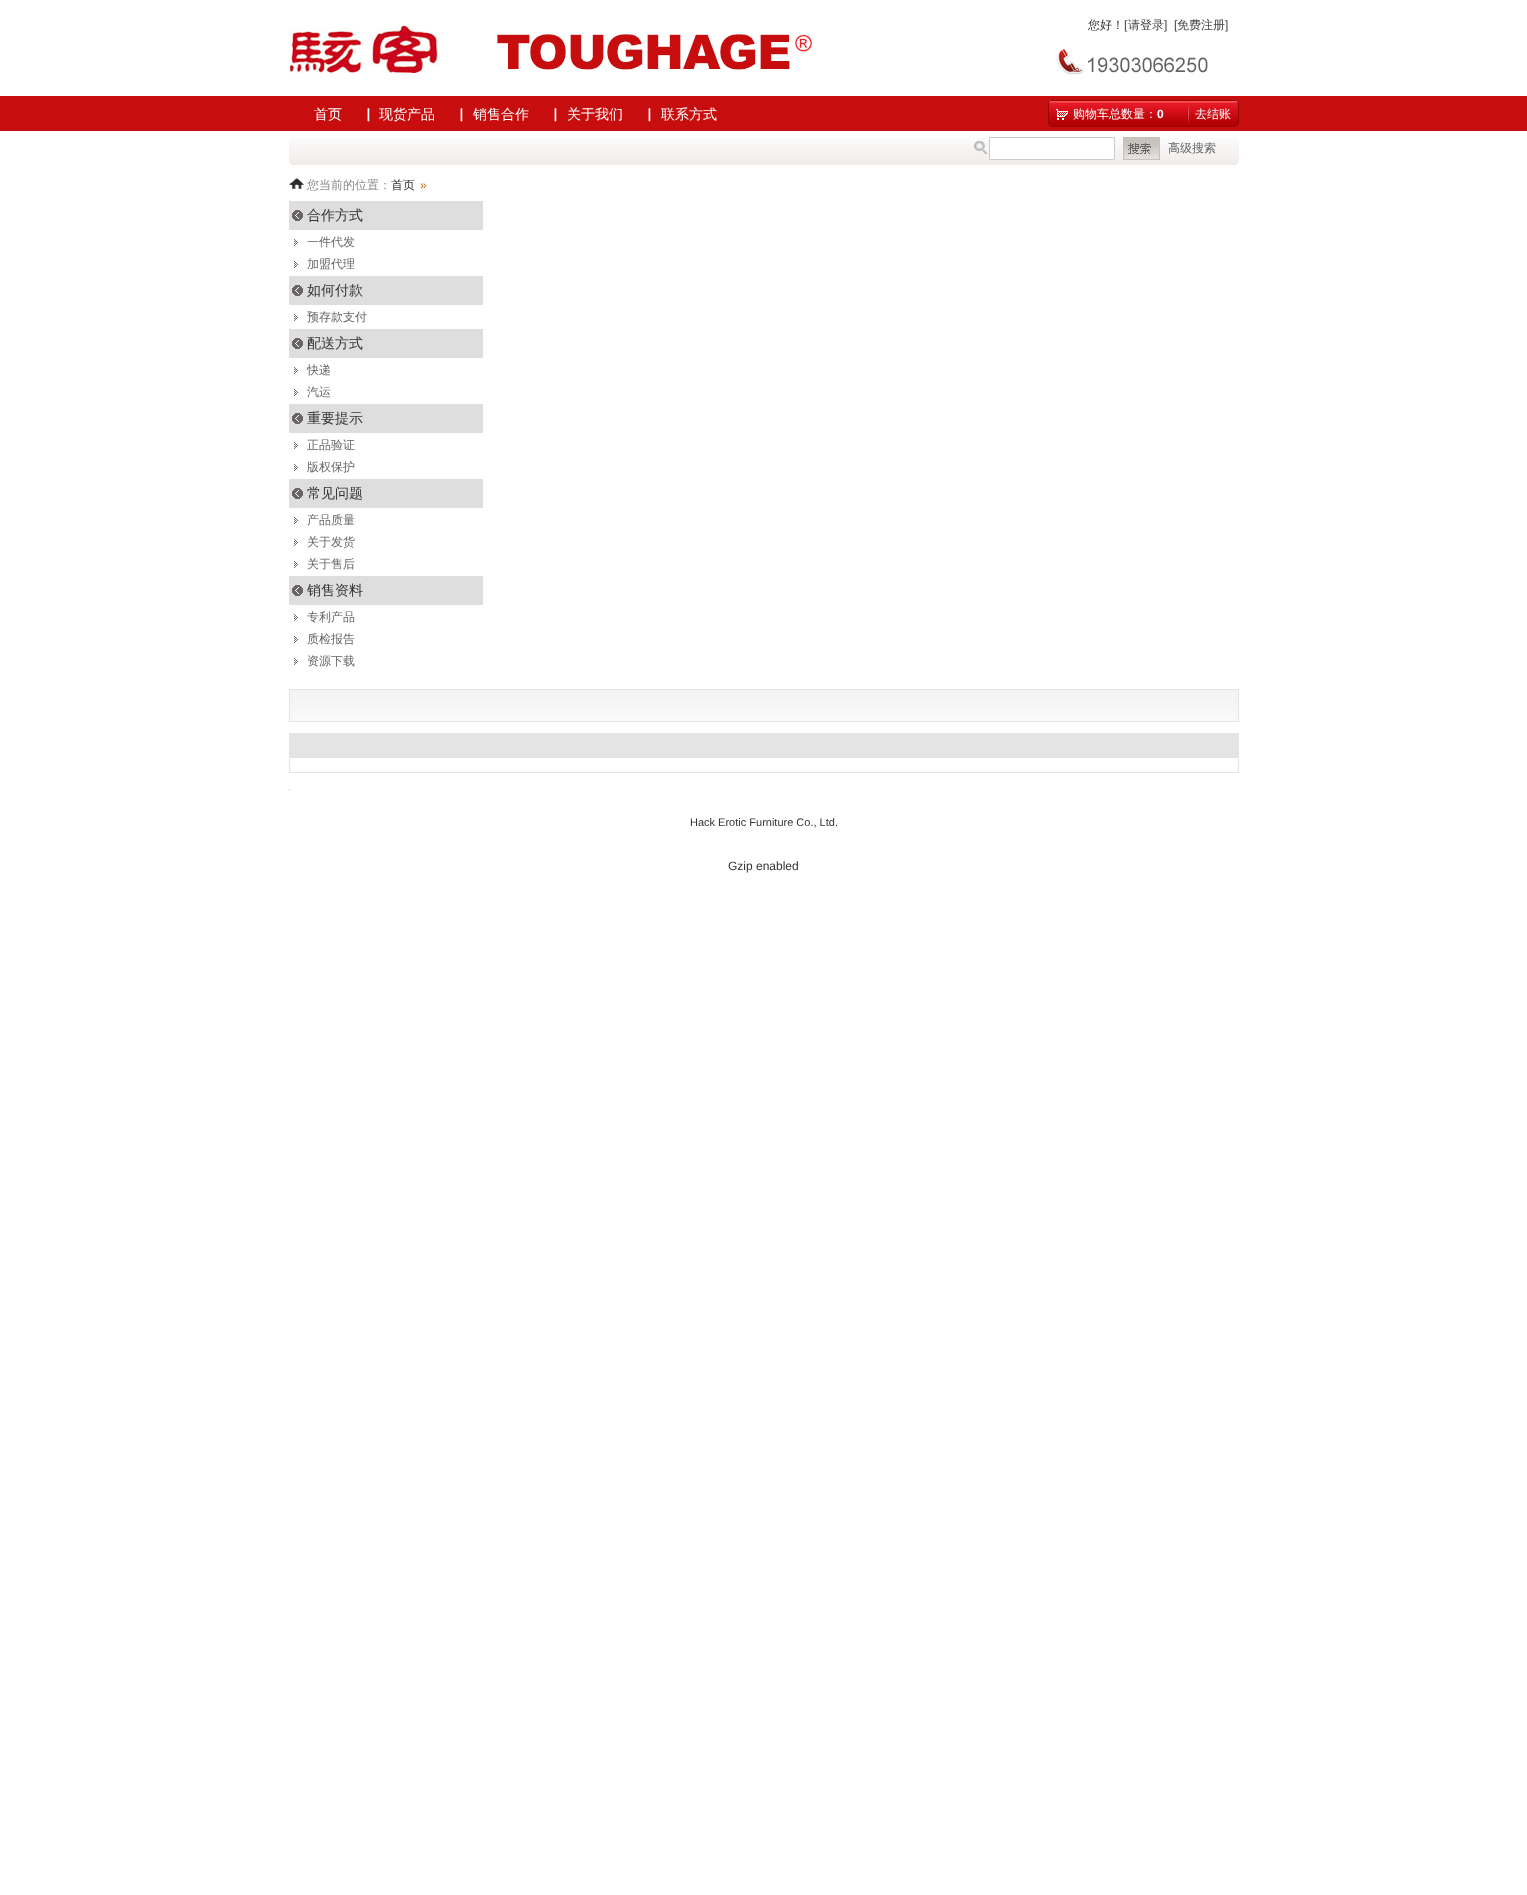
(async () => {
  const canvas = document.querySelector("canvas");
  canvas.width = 1527;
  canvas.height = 1895;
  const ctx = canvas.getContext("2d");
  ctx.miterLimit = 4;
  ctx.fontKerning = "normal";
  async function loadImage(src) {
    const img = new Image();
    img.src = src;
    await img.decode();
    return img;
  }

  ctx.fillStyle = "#ffffff";
  ctx.fillRect(0, 0, 1527, 1895);
  ctx.drawImage(await loadImage("img/1.png"), 289, 24, 152, 49);
  ctx.drawImage(await loadImage("img/2.png"), 497, 33, 711, 42);
  ctx.fillStyle = "#c70d0e";
  ctx.fillRect(0, 96, 1527, 35);
  ctx.drawImage(await loadImage("img/3.png"), 1048, 100, 191, 27);
  ctx.drawImage(await loadImage("img/4.png"), 289, 138, 950, 27);
  ctx.drawImage(await loadImage("img/5.png"), 974, 141, 13, 13);
  ctx.fillStyle = "#ffffff";
  ctx.beginPath();
  ctx.rect(989.5, 137.5, 125, 22);
  ctx.fill();
  ctx.strokeStyle = "#cccccc";
  ctx.stroke();
  ctx.drawImage(await loadImage("img/6.png"), 1123, 137, 37, 23);
  ctx.drawImage(await loadImage("img/7.png"), 289, 178, 15, 11);
  ctx.fillStyle = "#dedede";
  ctx.fillRect(289, 201, 194, 29);
  ctx.drawImage(await loadImage("img/8.png"), 292, 210, 11, 11);
  ctx.drawImage(await loadImage("img/9.png"), 294, 239, 4, 7);
  ctx.drawImage(await loadImage("img/9.png"), 294, 261, 4, 7);
  ctx.fillRect(289, 276, 194, 29);
  ctx.drawImage(await loadImage("img/8.png"), 292, 285, 11, 11);
  ctx.drawImage(await loadImage("img/9.png"), 294, 314, 4, 7);
  ctx.fillRect(289, 329, 194, 29);
  ctx.drawImage(await loadImage("img/8.png"), 292, 338, 11, 11);
  ctx.drawImage(await loadImage("img/9.png"), 294, 367, 4, 7);
  ctx.drawImage(await loadImage("img/9.png"), 294, 389, 4, 7);
  ctx.fillRect(289, 404, 194, 29);
  ctx.drawImage(await loadImage("img/8.png"), 292, 413, 11, 11);
  ctx.drawImage(await loadImage("img/9.png"), 294, 442, 4, 7);
  ctx.drawImage(await loadImage("img/9.png"), 294, 464, 4, 7);
  ctx.fillRect(289, 479, 194, 29);
  ctx.drawImage(await loadImage("img/8.png"), 292, 488, 11, 11);
  ctx.drawImage(await loadImage("img/9.png"), 294, 517, 4, 7);
  ctx.drawImage(await loadImage("img/9.png"), 294, 539, 4, 7);
  ctx.drawImage(await loadImage("img/9.png"), 294, 561, 4, 7);
  ctx.fillRect(289, 576, 194, 29);
  ctx.drawImage(await loadImage("img/8.png"), 292, 585, 11, 11);
  ctx.drawImage(await loadImage("img/9.png"), 294, 614, 4, 7);
  ctx.drawImage(await loadImage("img/9.png"), 294, 636, 4, 7);
  ctx.drawImage(await loadImage("img/9.png"), 294, 658, 4, 7);
  ctx.drawImage(await loadImage("img/10.png"), 290, 690, 948, 31);
  ctx.strokeStyle = "#e4e4e4";
  ctx.strokeRect(289.5, 689.5, 949, 32);
  ctx.strokeRect(289.5, 733.5, 949, 39);
  ctx.fillStyle = "#e4e4e4";
  ctx.fillRect(290, 734, 948, 24);
  ctx.fillStyle = "#c3c3c3";
  ctx.fillRect(289, 789, 1, 1);
  ctx.font = "500 12px WenQuanYi Zen Hei";
  ctx.fillStyle = "#333333";
  ctx.fillText("您好！", 1088, 29);
  ctx.font = "12px Liberation Sans";
  ctx.fillStyle = "#464646";
  ctx.fillText("[", 1124, 29);
  ctx.font = "500 12px WenQuanYi Zen Hei";
  ctx.fillText("请登录", 1128, 29);
  ctx.font = "12px Liberation Sans";
  ctx.fillText("]", 1164, 29);
  ctx.fillText("[", 1174, 29);
  ctx.font = "500 12px WenQuanYi Zen Hei";
  ctx.fillText("免费注册", 1177, 29);
  ctx.font = "12px Liberation Sans";
  ctx.fillText("]", 1225, 29);
  ctx.font = "500 14px WenQuanYi Zen Hei";
  ctx.fillStyle = "#ffffff";
  for (const [text, x, y] of [
    ["首页", 314, 119],
    ["▏", 362, 119],
    ["现货产品", 379, 119],
    ["▏", 455, 119],
    ["销售合作", 473, 119],
    ["▏", 549, 119],
    ["关于我们", 567, 119],
    ["▏", 643, 119],
    ["联系方式", 661, 119],
  ]) {
    ctx.fillText(text, x, y);
  }
  ctx.font = "500 12px WenQuanYi Zen Hei";
  ctx.fillText("购物车总数量：", 1073, 118);
  ctx.font = "bold 12px Liberation Sans";
  ctx.fillText("0", 1157, 118);
  ctx.font = "500 12px WenQuanYi Zen Hei";
  ctx.fillText("去结账", 1195, 118);
  ctx.fillStyle = "#666666";
  ctx.fillText("高级搜索", 1168, 152);
  ctx.fillStyle = "#888888";
  ctx.fillText("您当前的位置：", 307, 189);
  ctx.fillStyle = "#333333";
  ctx.fillText("首页", 391, 189);
  ctx.font = "12px Liberation Sans";
  ctx.fillStyle = "#cc6600";
  ctx.fillText("»", 420, 189);
  ctx.font = "500 14px WenQuanYi Zen Hei";
  ctx.fillStyle = "#333333";
  ctx.fillText("合作方式", 307, 220);
  ctx.font = "500 12px WenQuanYi Zen Hei";
  ctx.fillStyle = "#666666";
  ctx.fillText("一件代发", 307, 246);
  ctx.fillText("加盟代理", 307, 268);
  ctx.font = "500 14px WenQuanYi Zen Hei";
  ctx.fillStyle = "#333333";
  ctx.fillText("如何付款", 307, 295);
  ctx.font = "500 12px WenQuanYi Zen Hei";
  ctx.fillStyle = "#666666";
  ctx.fillText("预存款支付", 307, 321);
  ctx.font = "500 14px WenQuanYi Zen Hei";
  ctx.fillStyle = "#333333";
  ctx.fillText("配送方式", 307, 348);
  ctx.font = "500 12px WenQuanYi Zen Hei";
  ctx.fillStyle = "#666666";
  ctx.fillText("快递", 307, 374);
  ctx.fillText("汽运", 307, 396);
  ctx.font = "500 14px WenQuanYi Zen Hei";
  ctx.fillStyle = "#333333";
  ctx.fillText("重要提示", 307, 423);
  ctx.font = "500 12px WenQuanYi Zen Hei";
  ctx.fillStyle = "#666666";
  ctx.fillText("正品验证", 307, 449);
  ctx.fillText("版权保护", 307, 471);
  ctx.font = "500 14px WenQuanYi Zen Hei";
  ctx.fillStyle = "#333333";
  ctx.fillText("常见问题", 307, 498);
  ctx.font = "500 12px WenQuanYi Zen Hei";
  ctx.fillStyle = "#666666";
  for (const [text, x, y] of [
    ["产品质量", 307, 524],
    ["关于发货", 307, 546],
    ["关于售后", 307, 568],
  ]) {
    ctx.fillText(text, x, y);
  }
  ctx.font = "500 14px WenQuanYi Zen Hei";
  ctx.fillStyle = "#333333";
  ctx.fillText("销售资料", 307, 595);
  ctx.font = "500 12px WenQuanYi Zen Hei";
  ctx.fillStyle = "#666666";
  for (const [text, x, y] of [
    ["专利产品", 307, 621],
    ["质检报告", 307, 643],
    ["资源下载", 307, 665],
  ]) {
    ctx.fillText(text, x, y);
  }
  ctx.font = "11px Liberation Sans";
  ctx.fillStyle = "#333333";
  ctx.fillText("Hack Erotic Furniture Co., Ltd.", 690, 826);
  ctx.font = "12px Liberation Sans";
  ctx.fillText("Gzip enabled", 728, 870);
})();
